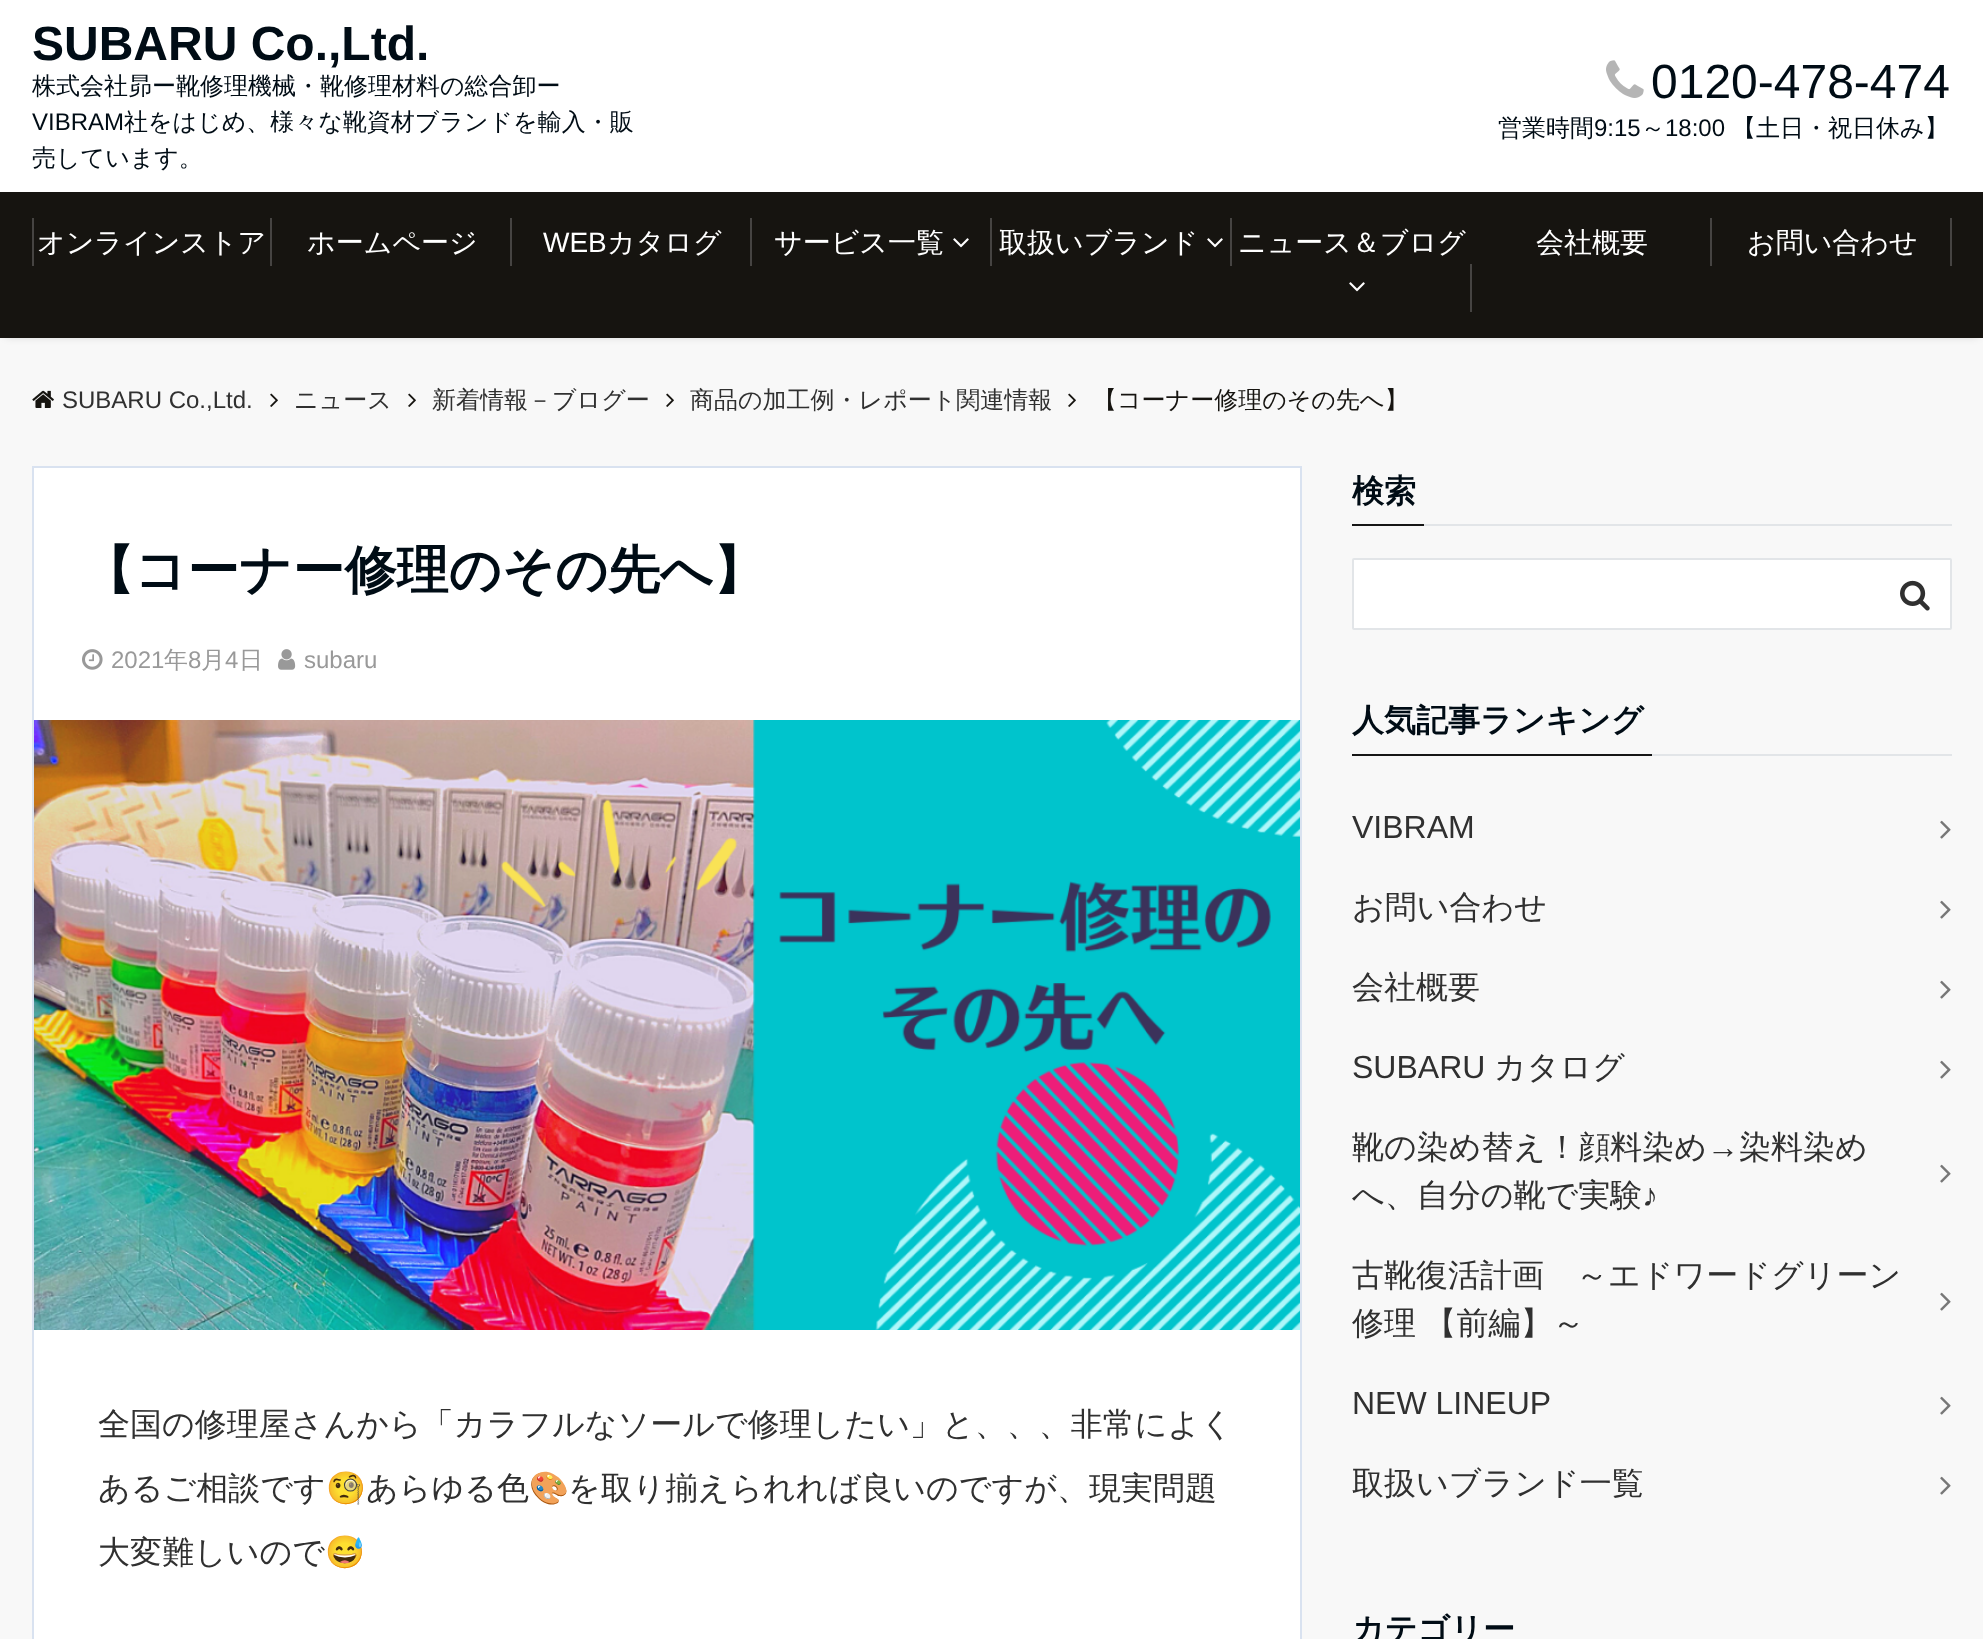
(async () => {
  const canvas = document.querySelector("canvas");
  canvas.width = 1983;
  canvas.height = 1639;
  const ctx = canvas.getContext("2d");
  ctx.miterLimit = 4;
  ctx.fontKerning = "normal";
  async function loadImage(src) {
    const img = new Image();
    img.src = src;
    await img.decode();
    return img;
  }

  ctx.fillStyle = "#f8f8f8";
  ctx.fillRect(0, 0, 1983, 1639);
  ctx.fillStyle = "#ffffff";
  ctx.fillRect(0, 0, 1983, 192);
  ctx.drawImage(await loadImage("img/1.png"), 1606, 60, 38, 38);
  ctx.fillStyle = "rgba(0, 0, 0, 0.2)";
  ctx.filter = "blur(4px)";
  ctx.beginPath();
  ctx.rect(6, 202, 1972, 134);
  ctx.fill();
  ctx.filter = "none";
  for (const [x, y, w, h, color] of [
    [0, 192, 1983, 146, "#161410"],
    [32, 218, 2, 48, "#464442"],
    [270, 218, 2, 48, "#464442"],
    [510, 218, 2, 48, "#464442"],
    [750, 218, 2, 48, "#464442"],
  ]) {
    ctx.fillStyle = color;
    ctx.fillRect(x, y, w, h);
  }
  ctx.drawImage(await loadImage("img/2.png"), 953, 238, 16, 10);
  ctx.fillRect(990, 218, 2, 48);
  ctx.drawImage(await loadImage("img/2.png"), 1207, 238, 16, 10);
  ctx.fillRect(1230, 218, 2, 48);
  ctx.drawImage(await loadImage("img/2.png"), 1349, 282, 16, 10);
  for (const [x, y, w, h, color] of [
    [1470, 264, 2, 48, "#464442"],
    [1710, 218, 2, 48, "#464442"],
    [1950, 218, 2, 48, "#464442"],
  ]) {
    ctx.fillStyle = color;
    ctx.fillRect(x, y, w, h);
  }
  ctx.drawImage(await loadImage("img/3.png"), 32, 390, 22, 18);
  ctx.drawImage(await loadImage("img/4.png"), 270, 393, 8, 14);
  ctx.drawImage(await loadImage("img/4.png"), 408, 393, 8, 14);
  ctx.drawImage(await loadImage("img/4.png"), 666, 393, 8, 14);
  ctx.drawImage(await loadImage("img/4.png"), 1068, 393, 8, 14);
  ctx.fillStyle = "#ffffff";
  ctx.beginPath();
  ctx.rect(33, 467, 1268, 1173);
  ctx.fill();
  ctx.strokeStyle = "#d9e2f0";
  ctx.lineWidth = 2;
  ctx.stroke();
  ctx.drawImage(await loadImage("img/5.png"), 82, 649, 21, 21);
  ctx.drawImage(await loadImage("img/6.png"), 278, 649, 18, 21);
  ctx.drawImage(await loadImage("img/7.png"), 34, 720, 1266, 610);
  ctx.fillStyle = "#e2e5e8";
  ctx.fillRect(1424, 524, 528, 2);
  ctx.fillStyle = "#161616";
  ctx.fillRect(1352, 524, 72, 2);
  ctx.fillStyle = "#ffffff";
  ctx.beginPath();
  ctx.roundRect(1353, 559, 598, 70, 1);
  ctx.fill();
  ctx.strokeStyle = "#e2e5e8";
  ctx.stroke();
  ctx.drawImage(await loadImage("img/8.png"), 1900, 580, 30, 31);
  ctx.fillStyle = "#e2e5e8";
  ctx.fillRect(1652, 754, 300, 2);
  ctx.fillStyle = "#161616";
  ctx.fillRect(1352, 754, 300, 2);
  ctx.drawImage(await loadImage("img/9.png"), 1940, 820, 11, 19);
  ctx.drawImage(await loadImage("img/9.png"), 1940, 900, 11, 19);
  ctx.drawImage(await loadImage("img/9.png"), 1940, 980, 11, 19);
  ctx.drawImage(await loadImage("img/9.png"), 1940, 1060, 11, 19);
  ctx.drawImage(await loadImage("img/9.png"), 1940, 1164, 11, 19);
  ctx.drawImage(await loadImage("img/9.png"), 1940, 1292, 11, 19);
  ctx.drawImage(await loadImage("img/9.png"), 1940, 1396, 11, 19);
  ctx.drawImage(await loadImage("img/9.png"), 1940, 1476, 11, 19);
  ctx.font = "bold 48px Liberation Sans";
  ctx.fillStyle = "#000c15";
  ctx.fillText("SUBARU Co.,Ltd.", 32, 60);
  ctx.font = "500 24px WenQuanYi Zen Hei";
  ctx.fillText("株式会社昴ー靴修理機械・靴修理材料の総合卸ー", 32, 94);
  ctx.font = "24px Liberation Sans";
  ctx.fillText("VIBRAM", 32, 130);
  ctx.font = "500 24px WenQuanYi Zen Hei";
  ctx.fillText("社をはじめ、様々な靴資材ブランドを輸入・販", 124, 130);
  ctx.fillText("売しています。", 32, 166);
  ctx.font = "48px Liberation Sans";
  ctx.fillText("0120-478-474", 1651, 98);
  ctx.font = "500 24px WenQuanYi Zen Hei";
  ctx.fillText("営業時間", 1498, 136);
  ctx.font = "24px Liberation Sans";
  ctx.fillText("9:15", 1594, 136);
  ctx.font = "500 24px WenQuanYi Zen Hei";
  ctx.fillText("～", 1641, 136);
  ctx.font = "24px Liberation Sans";
  ctx.fillText("18:00", 1665, 136);
  ctx.font = "500 24px WenQuanYi Zen Hei";
  ctx.fillText("【土日・祝日休み】", 1732, 136);
  ctx.font = "500 28px WenQuanYi Zen Hei";
  ctx.fillStyle = "#ffffff";
  ctx.fillText("オンラインストア", 37, 252);
  ctx.fillText("ホームページ", 307, 252);
  ctx.font = "28px Liberation Sans";
  ctx.fillText("WEB", 543, 252);
  ctx.font = "500 28px WenQuanYi Zen Hei";
  for (const [text, x, y] of [
    ["カタログ", 607, 252],
    ["サービス一覧", 774, 252],
    ["取扱いブランド", 999, 252],
    ["ニュース＆ブログ", 1238, 252],
    ["会社概要", 1536, 252],
    ["お問い合わせ", 1747, 252],
  ]) {
    ctx.fillText(text, x, y);
  }
  ctx.font = "24px Liberation Sans";
  ctx.fillStyle = "#303030";
  ctx.fillText("SUBARU Co.,Ltd.", 62, 408);
  ctx.font = "500 24px WenQuanYi Zen Hei";
  for (const [text, x, y] of [
    ["ニュース", 294, 408],
    ["新着情報－ブログー", 432, 408],
    ["商品の加工例・レポート関連情報", 690, 408],
  ]) {
    ctx.fillText(text, x, y);
  }
  ctx.fillStyle = "#161410";
  ctx.fillText("【コーナー修理のその先へ】", 1093, 408);
  ctx.font = "bold 52px WenQuanYi Zen Hei";
  ctx.fillStyle = "#000c15";
  ctx.fillText("【コーナー修理のその先へ】", 82, 588);
  ctx.font = "24px Liberation Sans";
  ctx.fillStyle = "#999999";
  ctx.fillText("2021", 111, 668);
  ctx.font = "500 24px WenQuanYi Zen Hei";
  ctx.fillText("年", 164, 668);
  ctx.font = "24px Liberation Sans";
  ctx.fillText("8", 188, 668);
  ctx.font = "500 24px WenQuanYi Zen Hei";
  ctx.fillText("月", 201, 668);
  ctx.font = "24px Liberation Sans";
  ctx.fillText("4", 225, 668);
  ctx.font = "500 24px WenQuanYi Zen Hei";
  ctx.fillText("日", 239, 668);
  ctx.font = "24px Liberation Sans";
  ctx.fillText("subaru", 304, 668);
  ctx.font = "500 32px WenQuanYi Zen Hei";
  ctx.fillStyle = "#303030";
  ctx.fillText("全国の修理屋さんから「カラフルなソールで修理したい」と、、、非常によく", 98, 1435);
  ctx.fillText("あるご相談です", 98, 1499);
  ctx.font = "32px Noto Color Emoji";
  ctx.fillText("🧐", 326, 1499);
  ctx.font = "500 32px WenQuanYi Zen Hei";
  ctx.fillText("あらゆる色", 366, 1499);
  ctx.font = "32px Noto Color Emoji";
  ctx.fillText("🎨", 529, 1499);
  ctx.font = "500 32px WenQuanYi Zen Hei";
  ctx.fillText("を取り揃えられれば良いのですが、現実問題", 568, 1499);
  ctx.fillText("大変難しいので", 98, 1563);
  ctx.font = "32px Noto Color Emoji";
  ctx.fillText("😅", 325, 1563);
  ctx.font = "bold 32px WenQuanYi Zen Hei";
  ctx.fillStyle = "#000c15";
  ctx.fillText("検索", 1352, 502);
  ctx.fillText("人気記事ランキング", 1352, 731);
  ctx.font = "32px Liberation Sans";
  ctx.fillStyle = "#303030";
  ctx.fillText("VIBRAM", 1352, 838);
  ctx.font = "500 32px WenQuanYi Zen Hei";
  ctx.fillText("お問い合わせ", 1352, 918);
  ctx.fillText("会社概要", 1352, 998);
  ctx.font = "32px Liberation Sans";
  ctx.fillText("SUBARU", 1352, 1078);
  ctx.font = "500 32px WenQuanYi Zen Hei";
  ctx.fillText("カタログ", 1494, 1078);
  ctx.fillText("靴の染め替え！顔料染め", 1352, 1158);
  ctx.font = "32px Liberation Sans";
  ctx.fillText("→", 1707, 1158);
  ctx.font = "500 32px WenQuanYi Zen Hei";
  ctx.fillText("染料染め", 1739, 1158);
  ctx.fillText("へ、自分の靴で実験", 1352, 1206);
  ctx.font = "32px Liberation Sans";
  ctx.fillText("♪", 1642, 1206);
  ctx.font = "500 32px WenQuanYi Zen Hei";
  ctx.fillText("古靴復活計画　～エドワードグリーン", 1352, 1286);
  ctx.wordSpacing = "-1px";
  ctx.fillText("修理 【前編】～", 1352, 1334);
  ctx.wordSpacing = "0px";
  ctx.font = "32px Liberation Sans";
  ctx.fillText("NEW LINEUP", 1352, 1414);
  ctx.font = "500 32px WenQuanYi Zen Hei";
  ctx.fillText("取扱いブランド一覧", 1352, 1494);
  ctx.font = "bold 32px WenQuanYi Zen Hei";
  ctx.fillStyle = "#000c15";
  ctx.fillText("カテゴリー", 1352, 1640);
})();
